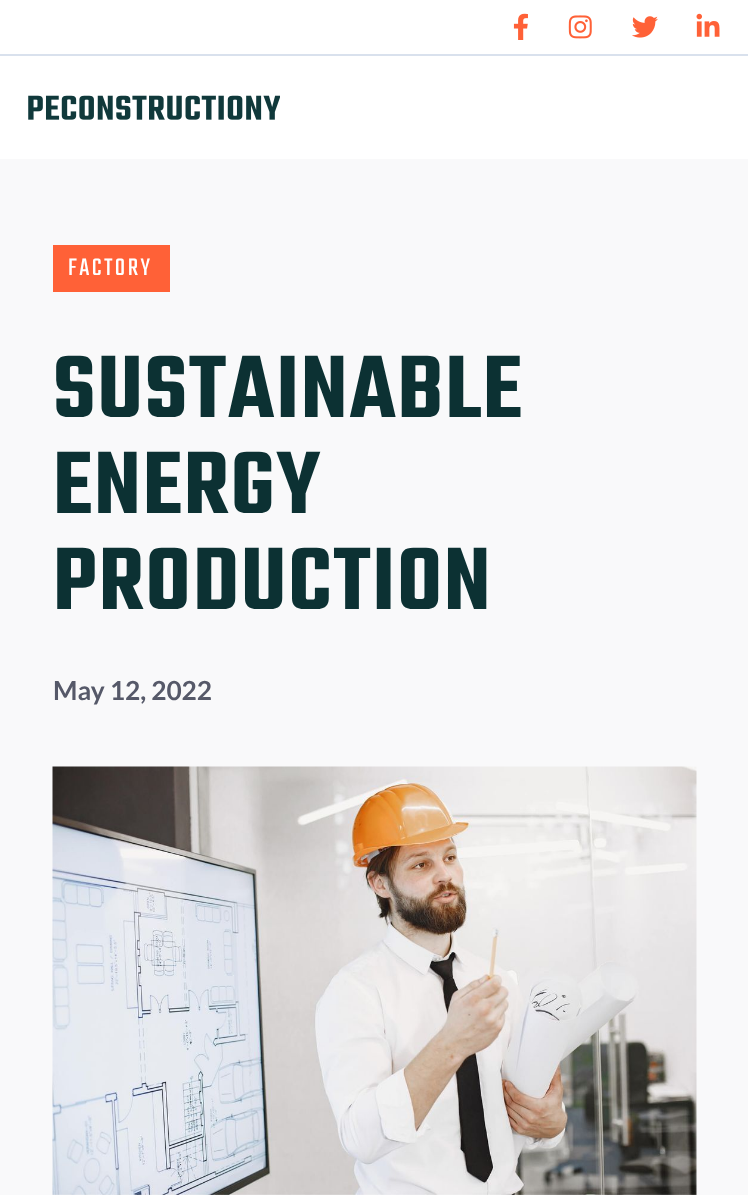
(async () => {
  const canvas = document.querySelector("canvas");
  canvas.width = 748;
  canvas.height = 1195;
  const ctx = canvas.getContext("2d");
  ctx.miterLimit = 4;
  ctx.fontKerning = "normal";
  async function loadImage(src) {
    const img = new Image();
    img.src = src;
    await img.decode();
    return img;
  }

  ctx.fillStyle = "#f9f9fa";
  ctx.fillRect(0, 0, 748, 1195);
  ctx.fillStyle = "#ffffff";
  ctx.fillRect(0, 0, 748, 159);
  ctx.fillStyle = "#d9e1ed";
  ctx.fillRect(0, 54, 748, 2);
  ctx.drawImage(await loadImage("img/1.png"), 513, 13, 15, 27);
  ctx.drawImage(await loadImage("img/2.png"), 568, 15, 24, 24);
  ctx.drawImage(await loadImage("img/3.png"), 632, 16, 26, 22);
  ctx.drawImage(await loadImage("img/4.png"), 696, 13, 24, 24);
  ctx.drawImage(await loadImage("img/5.png"), 28, 95, 252, 25);
  ctx.fillStyle = "#ff6137";
  ctx.fillRect(53, 245, 117, 47);
  ctx.drawImage(await loadImage("img/6.png"), 52, 766, 645, 429);
  ctx.letterSpacing = "2.5px";
  ctx.font = "26.25px Teko";
  ctx.fillStyle = "#ffffff";
  ctx.fillText("FACTORY", 68, 275);
  ctx.letterSpacing = "1.75px";
  ctx.font = "600 96.25px Teko";
  ctx.fillStyle = "#0c3133";
  for (const [text, x, y] of [
    ["SUSTAINABLE", 53, 417],
    ["ENERGY", 53, 513],
    ["PRODUCTION", 53, 609],
  ]) {
    ctx.fillText(text, x, y);
  }
  ctx.letterSpacing = "0px";
  ctx.font = "bold 26.25px Lato";
  ctx.fillStyle = "#565969";
  ctx.fillText("May 12, 2022", 53, 700);
})();
